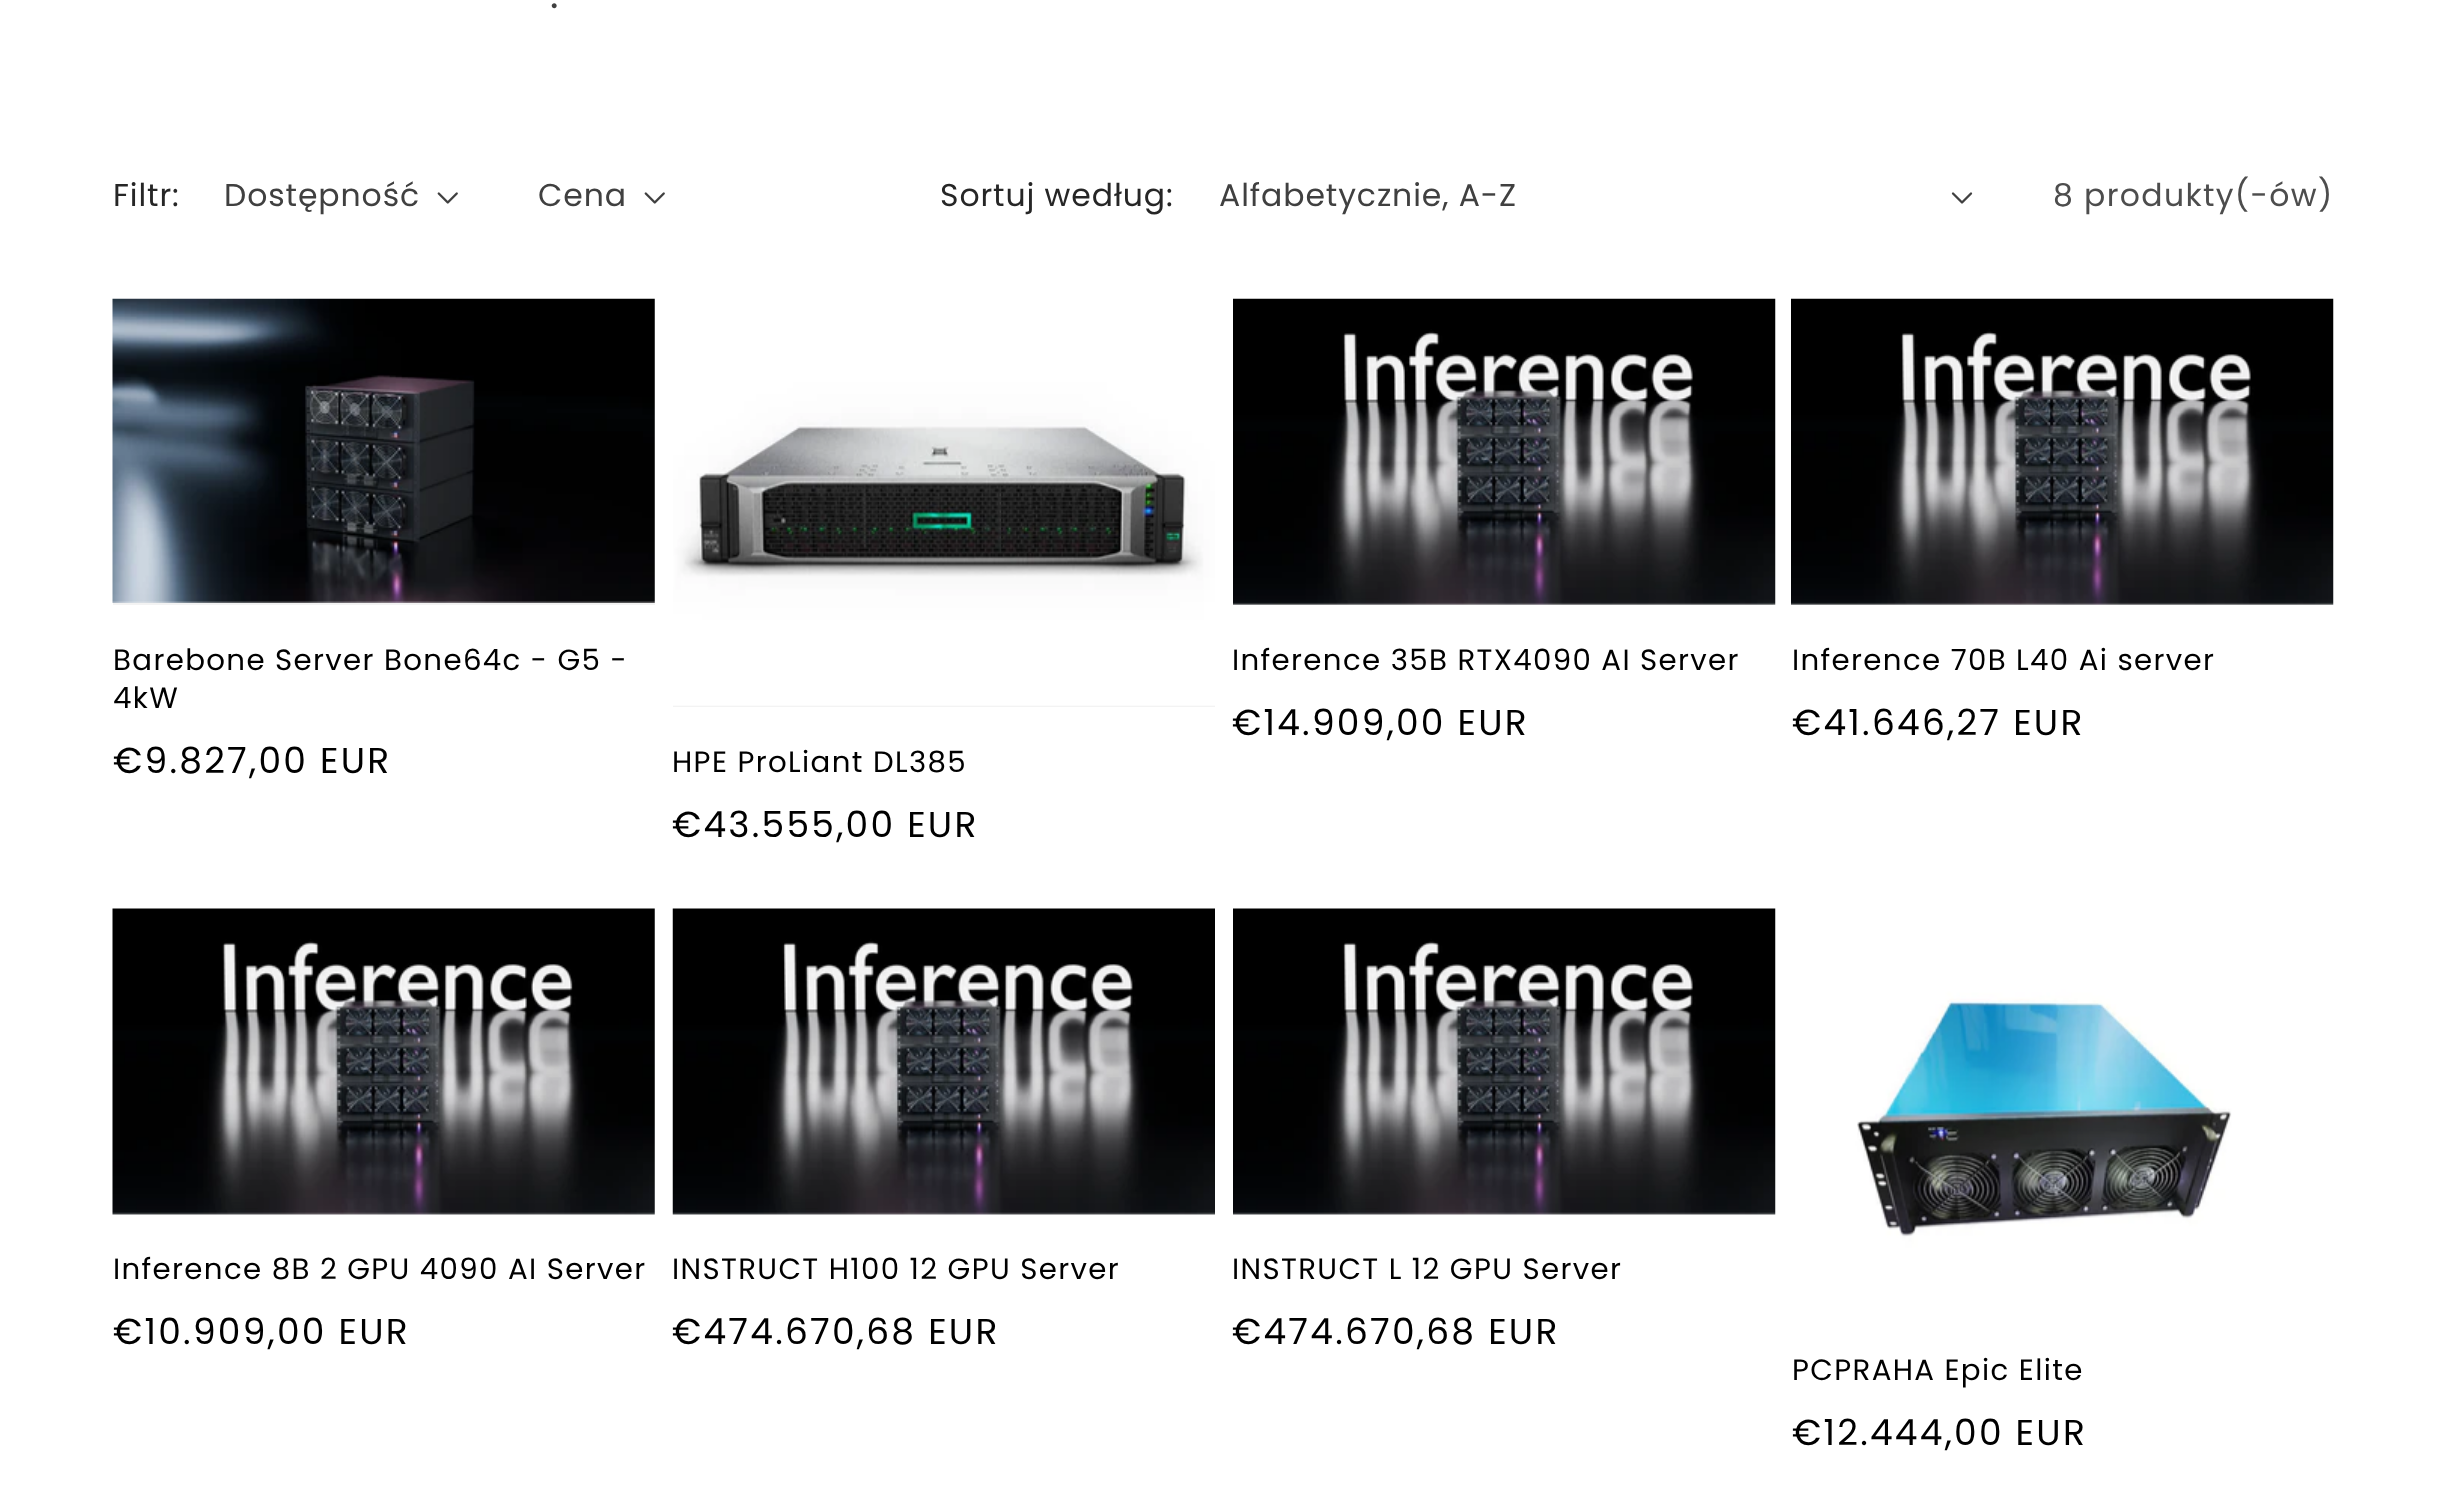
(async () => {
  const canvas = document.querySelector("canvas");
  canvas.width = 2444;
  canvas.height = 1493;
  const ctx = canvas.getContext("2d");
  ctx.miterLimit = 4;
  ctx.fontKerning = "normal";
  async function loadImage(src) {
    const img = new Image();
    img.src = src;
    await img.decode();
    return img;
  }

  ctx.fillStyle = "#ffffff";
  ctx.fillRect(0, 0, 2444, 1493);
  ctx.drawImage(await loadImage("img/1.png"), 437, 192, 21, 12);
  ctx.drawImage(await loadImage("img/1.png"), 644, 192, 21, 12);
  ctx.drawImage(await loadImage("img/2.png"), 1951, 192, 22, 12);
  ctx.fillStyle = "#f3f3f3";
  ctx.fillRect(113, 299, 542, 306);
  ctx.drawImage(await loadImage("img/3.png"), 112, 298, 543, 305);
  ctx.fillRect(1233, 600, 540, 5);
  ctx.drawImage(await loadImage("img/4.png"), 1233, 298, 543, 307);
  ctx.fillRect(1791, 600, 542, 5);
  ctx.drawImage(await loadImage("img/5.png"), 1791, 298, 543, 307);
  ctx.fillRect(673, 705, 542, 2);
  ctx.drawImage(await loadImage("img/6.png"), 673, 299, 542, 407);
  ctx.drawImage(await loadImage("img/7.png"), 112, 908, 543, 307);
  ctx.drawImage(await loadImage("img/8.png"), 672, 908, 543, 307);
  ctx.drawImage(await loadImage("img/9.png"), 1233, 908, 543, 307);
  ctx.drawImage(await loadImage("img/10.png"), 1791, 909, 542, 405);
  ctx.letterSpacing = "1.35px";
  ctx.font = "40px Poppins";
  ctx.fillStyle = "#404040";
  ctx.fillText(".", 550, 8);
  ctx.letterSpacing = "0.9px";
  ctx.font = "31.5px Poppins";
  ctx.fillStyle = "#262626";
  ctx.fillText("Filtr:", 113, 206);
  ctx.fillStyle = "#404040";
  ctx.fillText("Dostępność", 224, 206);
  ctx.fillText("Cena", 538, 206);
  ctx.fillStyle = "#262626";
  ctx.fillText("Sortuj według:", 940, 206);
  ctx.fillStyle = "#404040";
  ctx.fillText("Alfabetycznie, A-Z", 1219, 206);
  ctx.letterSpacing = "1.35px";
  ctx.fillStyle = "#4d4d4d";
  ctx.fillText("8 produkty(-ów)", 2053, 206);
  ctx.font = "29.25px Poppins";
  ctx.fillStyle = "#000000";
  ctx.fillText("Barebone Server Bone64c - G5 -", 113, 670);
  ctx.fillText("4kW", 113, 708);
  ctx.letterSpacing = "2.25px";
  ctx.font = "36px Poppins";
  ctx.fillText("€9.827,00 EUR", 113, 773);
  ctx.letterSpacing = "1.35px";
  ctx.font = "29.25px Poppins";
  ctx.fillText("Inference 35B RTX4090 AI Server", 1232, 670);
  ctx.letterSpacing = "2.25px";
  ctx.font = "36px Poppins";
  ctx.fillText("€14.909,00 EUR", 1232, 735);
  ctx.letterSpacing = "1.35px";
  ctx.font = "29.25px Poppins";
  ctx.fillText("Inference 70B L40 Ai server", 1792, 670);
  ctx.letterSpacing = "2.25px";
  ctx.font = "36px Poppins";
  ctx.fillText("€41.646,27 EUR", 1792, 735);
  ctx.letterSpacing = "1.35px";
  ctx.font = "29.25px Poppins";
  ctx.fillText("HPE ProLiant DL385", 672, 772);
  ctx.letterSpacing = "2.25px";
  ctx.font = "36px Poppins";
  ctx.fillText("€43.555,00 EUR", 672, 837);
  ctx.letterSpacing = "1.35px";
  ctx.font = "29.25px Poppins";
  ctx.fillText("Inference 8B 2 GPU 4090 AI Server", 113, 1279);
  ctx.letterSpacing = "2.25px";
  ctx.font = "36px Poppins";
  ctx.fillText("€10.909,00 EUR", 113, 1344);
  ctx.letterSpacing = "1.35px";
  ctx.font = "29.25px Poppins";
  ctx.fillText("INSTRUCT H100 12 GPU Server", 672, 1279);
  ctx.letterSpacing = "2.25px";
  ctx.font = "36px Poppins";
  ctx.fillText("€474.670,68 EUR", 672, 1344);
  ctx.letterSpacing = "1.35px";
  ctx.font = "29.25px Poppins";
  ctx.fillText("INSTRUCT L 12 GPU Server", 1232, 1279);
  ctx.letterSpacing = "2.25px";
  ctx.font = "36px Poppins";
  ctx.fillText("€474.670,68 EUR", 1232, 1344);
  ctx.letterSpacing = "1.35px";
  ctx.font = "29.25px Poppins";
  ctx.fillText("PCPRAHA Epic Elite", 1792, 1380);
  ctx.letterSpacing = "2.25px";
  ctx.font = "36px Poppins";
  ctx.fillText("€12.444,00 EUR", 1792, 1445);
})();
